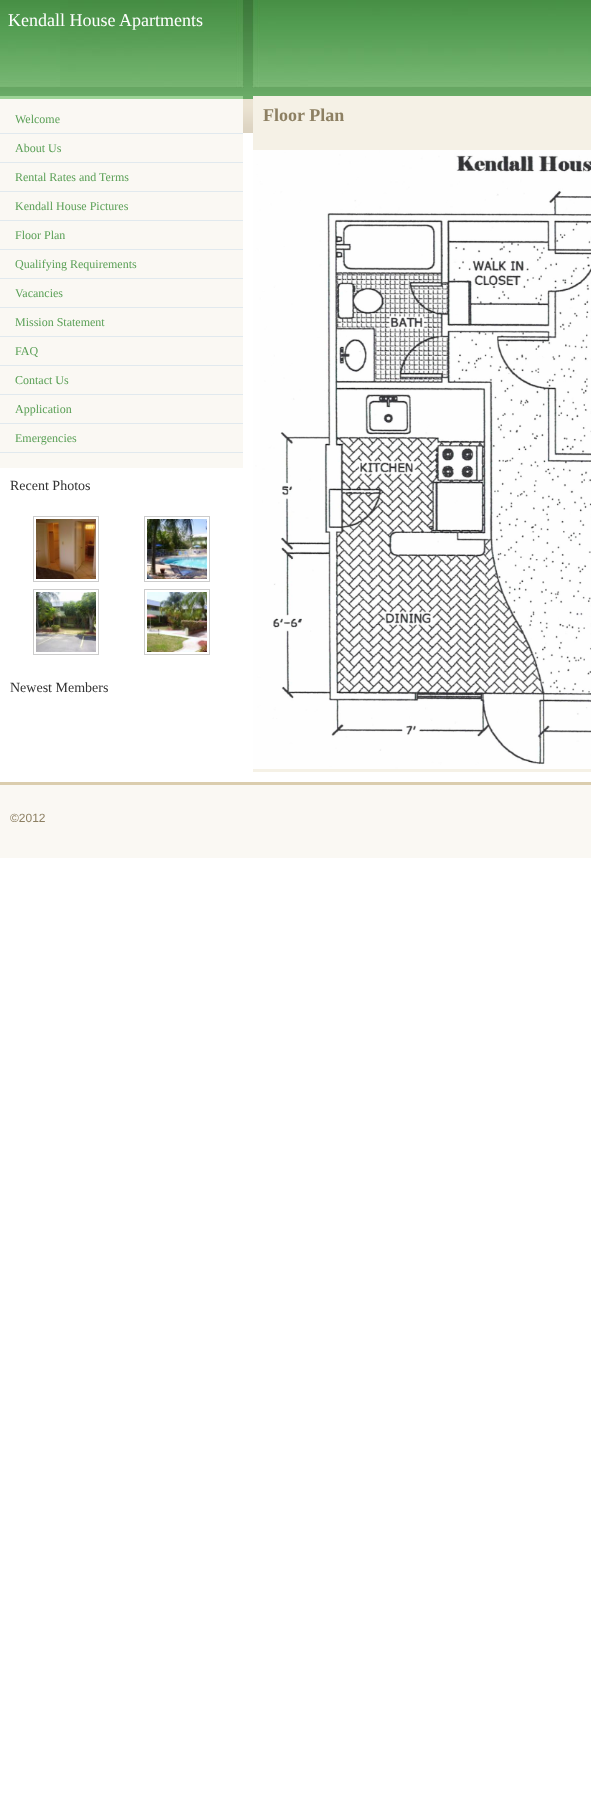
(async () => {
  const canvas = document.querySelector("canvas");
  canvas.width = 591;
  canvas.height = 1802;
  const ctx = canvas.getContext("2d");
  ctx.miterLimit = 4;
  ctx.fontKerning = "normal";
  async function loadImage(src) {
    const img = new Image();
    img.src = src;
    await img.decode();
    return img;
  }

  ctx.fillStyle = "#ffffff";
  ctx.fillRect(0, 0, 591, 1802);
  ctx.drawImage(await loadImage("img/1.png"), 0, 88, 591, 45);
  ctx.drawImage(await loadImage("img/2.png"), 0, 0, 591, 88);
  for (const [x, y, w, h, color] of [
    [0, 99, 243, 369, "#faf8f3"],
    [0, 96, 243, 3, "#9dd396"],
    [0, 133, 243, 1, "#e1e9ee"],
    [0, 162, 243, 1, "#e1e9ee"],
    [0, 191, 243, 1, "#e1e9ee"],
    [0, 220, 243, 1, "#e1e9ee"],
    [0, 249, 243, 1, "#e1e9ee"],
    [0, 278, 243, 1, "#e1e9ee"],
    [0, 307, 243, 1, "#e1e9ee"],
    [0, 336, 243, 1, "#e1e9ee"],
    [0, 365, 243, 1, "#e1e9ee"],
    [0, 394, 243, 1, "#e1e9ee"],
    [0, 423, 243, 1, "#e1e9ee"],
    [0, 452, 243, 1, "#e1e9ee"],
    [253, 96, 338, 676, "#f5f1e6"],
  ]) {
    ctx.fillStyle = color;
    ctx.fillRect(x, y, w, h);
  }
  ctx.drawImage(await loadImage("img/3.png"), 253, 150, 338, 619);
  ctx.strokeStyle = "#cccccc";
  ctx.strokeRect(33.5, 516.5, 65, 65);
  ctx.drawImage(await loadImage("img/4.png"), 36, 519, 60, 60);
  ctx.strokeRect(144.5, 516.5, 65, 65);
  ctx.drawImage(await loadImage("img/5.png"), 147, 519, 60, 60);
  ctx.strokeRect(33.5, 589.5, 65, 65);
  ctx.drawImage(await loadImage("img/6.png"), 36, 592, 60, 60);
  ctx.strokeRect(144.5, 589.5, 65, 65);
  ctx.drawImage(await loadImage("img/7.png"), 147, 592, 60, 60);
  ctx.fillStyle = "#faf8f3";
  ctx.fillRect(0, 785, 591, 73);
  ctx.fillStyle = "#dbcdae";
  ctx.fillRect(0, 782, 591, 3);
  ctx.font = "18px Liberation Serif";
  ctx.fillStyle = "#ffffff";
  ctx.fillText("Kendall House Apartments", 8, 26);
  ctx.font = "12px Liberation Serif";
  ctx.fillStyle = "#5ba057";
  for (const [text, x, y] of [
    ["Welcome", 15, 123],
    ["About Us", 15, 152],
    ["Rental Rates and Terms", 15, 181],
    ["Kendall House Pictures", 15, 210],
    ["Floor Plan", 15, 239],
    ["Qualifying Requirements", 15, 268],
    ["Vacancies", 15, 297],
    ["Mission Statement", 15, 326],
    ["FAQ", 15, 355],
    ["Contact Us", 15, 384],
    ["Application", 15, 413],
    ["Emergencies", 15, 442],
  ]) {
    ctx.fillText(text, x, y);
  }
  ctx.font = "bold 18px Liberation Serif";
  ctx.fillStyle = "#8d8063";
  ctx.fillText("Floor Plan", 263, 121);
  ctx.font = "14px Liberation Serif";
  ctx.fillStyle = "#333333";
  ctx.fillText("Recent Photos", 10, 490);
  ctx.fillText("Newest Members", 10, 692);
  ctx.font = "12px Liberation Sans";
  ctx.fillStyle = "#8d8063";
  ctx.fillText("©2012", 10, 822);
})();
